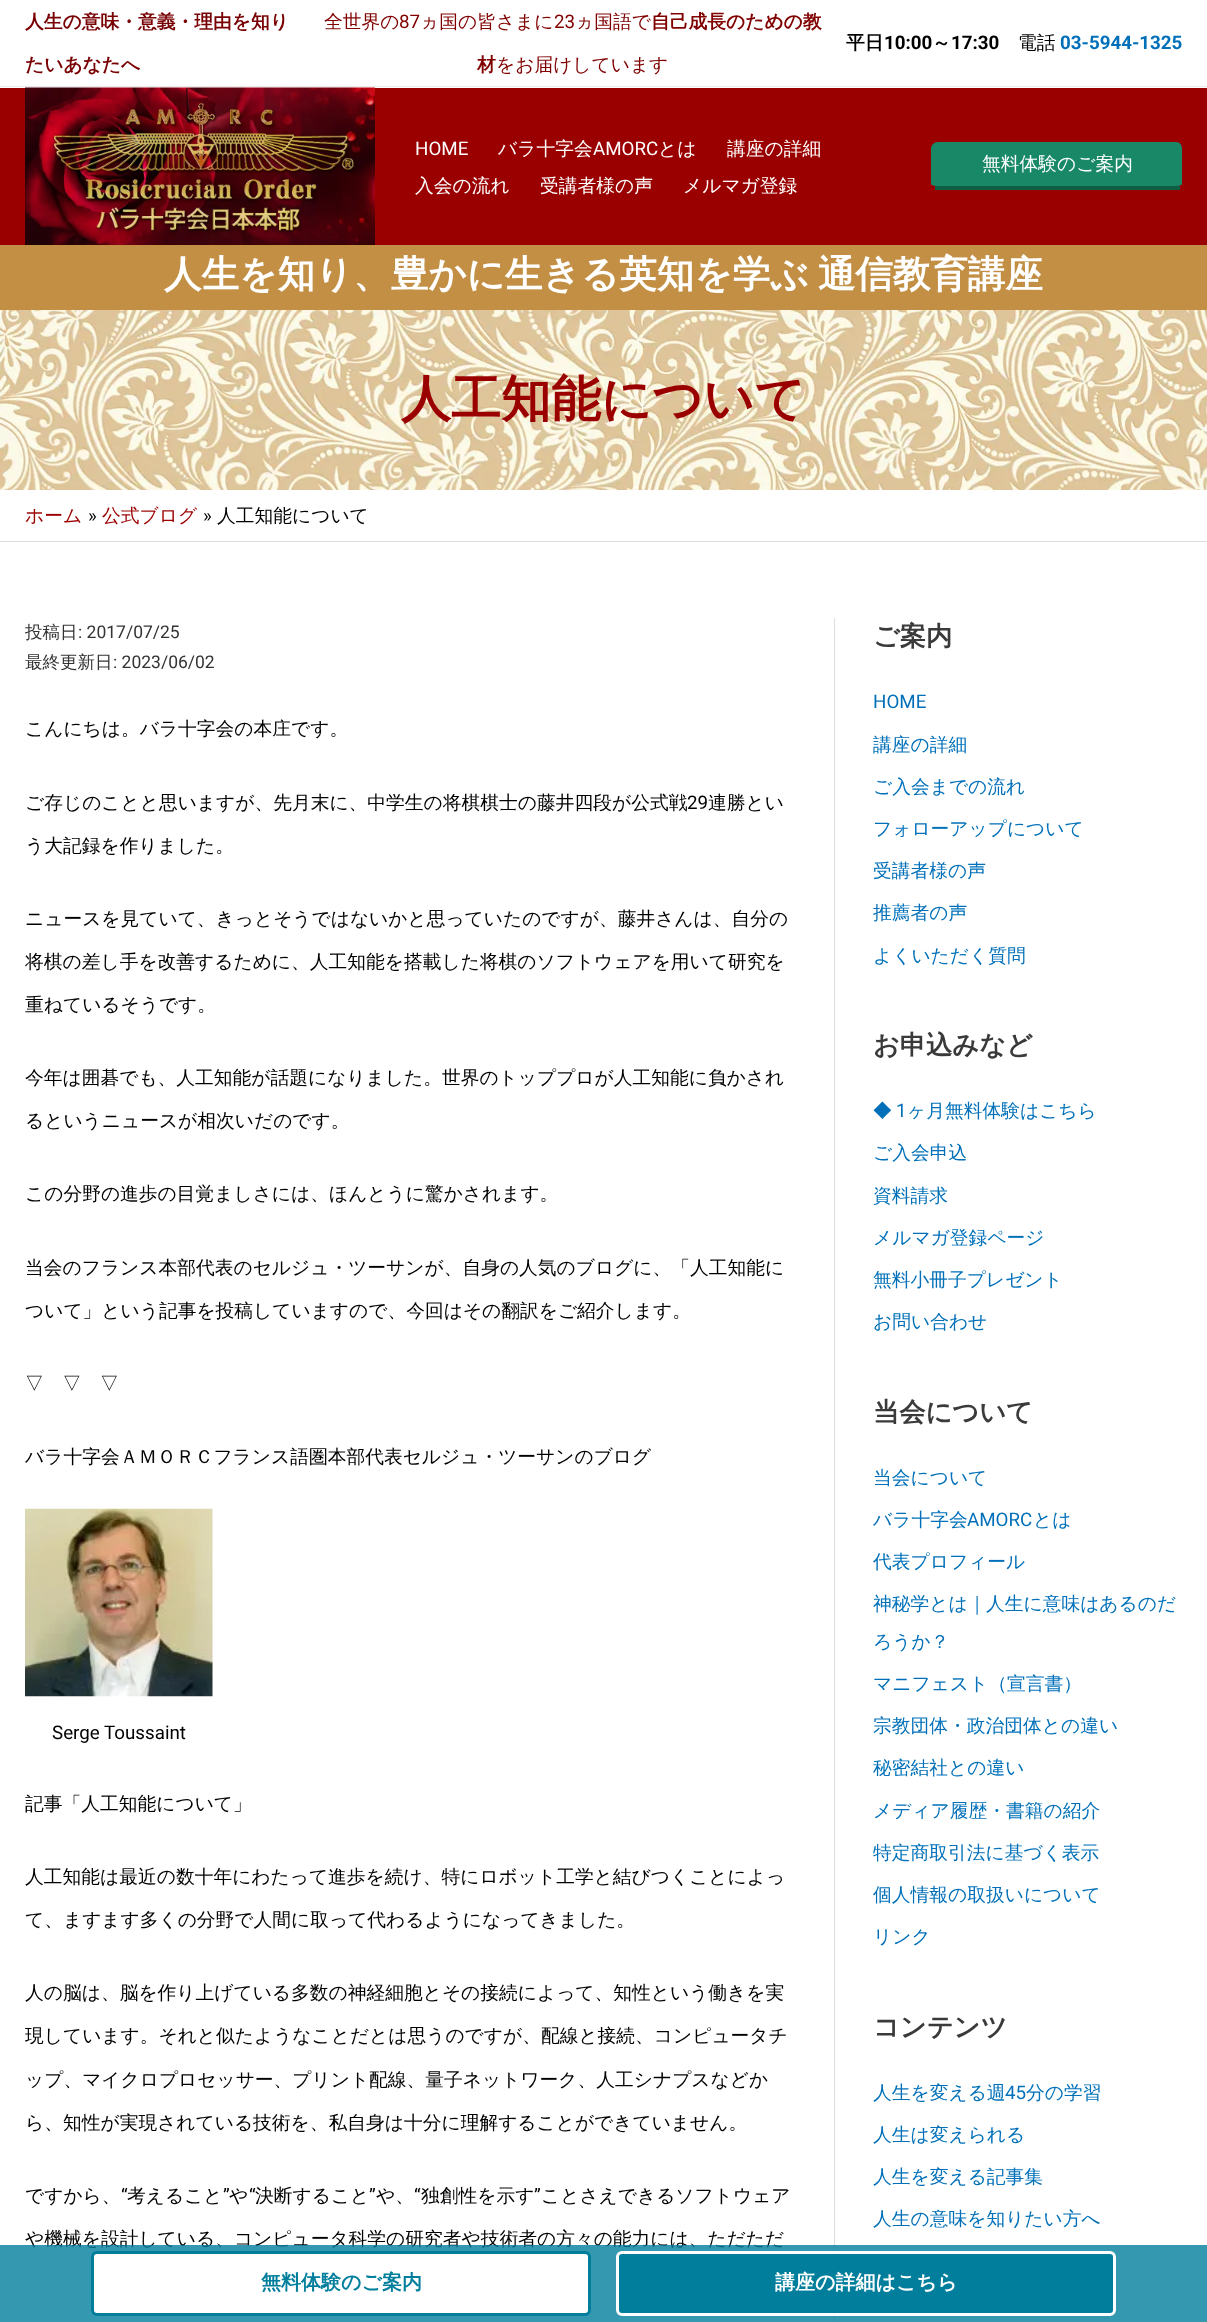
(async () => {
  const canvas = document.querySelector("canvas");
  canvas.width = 1207;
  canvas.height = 2322;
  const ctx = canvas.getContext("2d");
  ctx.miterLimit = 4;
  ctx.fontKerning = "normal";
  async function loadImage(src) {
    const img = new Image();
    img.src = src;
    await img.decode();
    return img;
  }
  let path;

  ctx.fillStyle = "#ffffff";
  ctx.fillRect(0, 0, 1207, 2322);
  ctx.fillStyle = "#eaeaea";
  ctx.fillRect(0, 86, 1207, 1);
  ctx.fillStyle = "#9b0000";
  ctx.fillRect(0, 88, 1207, 157);
  ctx.drawImage(await loadImage("img/1.png"), 25, 87, 350, 158);
  ctx.fillStyle = "#188867";
  path = new Path2D("M938 142H1176C1180 142 1182 145 1182 149V184C1182 185 1180 186 1176 186H938C934 186 931 185 931 184V149C931 145 934 142 938 142Z");
  ctx.fill(path);
  ctx.fillStyle = "#0e5d45";
  ctx.fillRect(935, 186, 245, 4);
  ctx.fillStyle = "#c28f44";
  ctx.fillRect(0, 245, 1207, 65);
  ctx.drawImage(await loadImage("img/2.png"), 0, 310, 1207, 180);
  ctx.fillStyle = "#dddddd";
  ctx.fillRect(0, 541, 1207, 1);
  ctx.fillRect(834, 618, 1, 1704);
  ctx.drawImage(await loadImage("img/3.png"), 25, 1508, 188, 189);
  ctx.font = "bold 18.75px WenQuanYi Zen Hei";
  ctx.fillStyle = "#780003";
  ctx.fillText("人生の意味・意義・理由を知り", 25, 28);
  ctx.fillText("たいあなたへ", 25, 71);
  ctx.font = "500 18.75px WenQuanYi Zen Hei";
  ctx.fillStyle = "#800000";
  ctx.fillText("全世界の", 324, 28);
  ctx.font = "18.75px Roboto";
  ctx.fillText("87", 399, 28);
  ctx.font = "500 18.75px WenQuanYi Zen Hei";
  ctx.fillText("ヵ国の皆さまに", 420, 28);
  ctx.font = "18.75px Roboto";
  ctx.fillText("23", 554, 28);
  ctx.font = "500 18.75px WenQuanYi Zen Hei";
  ctx.fillText("ヵ国語で", 575, 28);
  ctx.font = "bold 18.75px WenQuanYi Zen Hei";
  ctx.fillText("自己成長のための教", 651, 28);
  ctx.fillText("材", 477, 71);
  ctx.font = "500 18.75px WenQuanYi Zen Hei";
  ctx.fillText("をお届けしています", 496, 71);
  ctx.font = "bold 18.75px WenQuanYi Zen Hei";
  ctx.fillStyle = "#000000";
  ctx.fillText("平日", 846, 49);
  ctx.font = "bold 18.75px Roboto";
  ctx.fillText("10:00", 884, 49);
  ctx.font = "bold 18.75px WenQuanYi Zen Hei";
  ctx.fillText("～", 932, 49);
  ctx.font = "bold 18.75px Roboto";
  ctx.fillText("17:30", 951, 49);
  ctx.font = "500 18.75px WenQuanYi Zen Hei";
  ctx.fillText("電話", 1018, 49);
  ctx.font = "bold 18.75px Roboto";
  ctx.fillStyle = "#0170b9";
  ctx.fillText("03-5944-1325", 1060, 49);
  ctx.font = "18.75px Roboto";
  ctx.fillStyle = "#ffffff";
  ctx.fillText("HOME", 415, 155);
  ctx.font = "500 18.75px WenQuanYi Zen Hei";
  ctx.fillText("バラ十字会", 498, 155);
  ctx.font = "18.75px Roboto";
  ctx.fillText("AMORC", 593, 155);
  ctx.font = "500 18.75px WenQuanYi Zen Hei";
  for (const [text, x, y] of [
    ["とは", 658, 155],
    ["講座の詳細", 727, 155],
    ["入会の流れ", 415, 192],
    ["受講者様の声", 540, 192],
    ["メルマガ登録", 683, 192],
    ["無料体験のご案内", 982, 170],
  ]) {
    ctx.fillText(text, x, y);
  }
  ctx.wordSpacing = "-2px";
  ctx.font = "bold 37.5px WenQuanYi Zen Hei";
  ctx.fillText("人生を知り、豊かに生きる英知を学ぶ 通信教育講座", 164, 287);
  ctx.wordSpacing = "0px";
  ctx.font = "bold 50px WenQuanYi Zen Hei";
  ctx.fillStyle = "#9b0000";
  ctx.fillText("人工知能について", 401, 416);
  ctx.font = "500 18.75px WenQuanYi Zen Hei";
  ctx.fillText("ホーム", 25, 522);
  ctx.font = "18.75px Roboto";
  ctx.fillStyle = "#000000";
  ctx.fillText("»", 88, 522);
  ctx.font = "500 18.75px WenQuanYi Zen Hei";
  ctx.fillStyle = "#9b0000";
  ctx.fillText("公式ブログ", 102, 522);
  ctx.font = "18.75px Roboto";
  ctx.fillStyle = "#000000";
  ctx.fillText("»", 203, 522);
  ctx.font = "500 18.75px WenQuanYi Zen Hei";
  ctx.fillText("人工知能について", 217, 522);
  ctx.font = "500 17.5px WenQuanYi Zen Hei";
  ctx.fillStyle = "#333333";
  ctx.fillText("投稿日", 25, 638);
  ctx.font = "17.5px Roboto";
  ctx.fillText(": 2017/07/25", 78, 638);
  ctx.font = "500 17.5px WenQuanYi Zen Hei";
  ctx.fillText("最終更新日", 25, 668);
  ctx.font = "17.5px Roboto";
  ctx.fillText(": 2023/06/02", 113, 668);
  ctx.font = "500 18.75px WenQuanYi Zen Hei";
  ctx.fillStyle = "#000000";
  ctx.fillText("こんにちは。バラ十字会の本庄です。", 25, 735);
  ctx.fillText("ご存じのことと思いますが、先月末に、中学生の将棋棋士の藤井四段が公式戦", 25, 809);
  ctx.font = "18.75px Roboto";
  ctx.fillText("29", 687, 809);
  ctx.font = "500 18.75px WenQuanYi Zen Hei";
  for (const [text, x, y] of [
    ["連勝とい", 708, 809],
    ["う大記録を作りました。", 25, 852],
    ["ニュースを見ていて、きっとそうではないかと思っていたのですが、藤井さんは、自分の", 25, 925],
    ["将棋の差し手を改善するために、人工知能を搭載した将棋のソフトウェアを用いて研究を", 25, 968],
    ["重ねているそうです。", 25, 1011],
    ["今年は囲碁でも、人工知能が話題になりました。世界のトッププロが人工知能に負かされ", 25, 1084],
    ["るというニュースが相次いだのです。", 25, 1127],
    ["この分野の進歩の目覚ましさには、ほんとうに驚かされます。", 25, 1200],
    ["当会のフランス本部代表のセルジュ・ツーサンが、自身の人気のブログに、「人工知能に", 25, 1274],
    ["ついて」という記事を投稿していますので、今回はその翻訳をご紹介します。", 25, 1317],
    ["▽　▽　▽", 25, 1390],
    ["バラ十字会ＡＭＯＲＣフランス語圏本部代表セルジュ・ツーサンのブログ", 25, 1463],
  ]) {
    ctx.fillText(text, x, y);
  }
  ctx.font = "18.75px Roboto";
  ctx.fillText("Serge Toussaint", 52, 1739);
  ctx.font = "500 18.75px WenQuanYi Zen Hei";
  for (const [text, x, y] of [
    ["記事「人工知能について」", 25, 1810],
    ["人工知能は最近の数十年にわたって進歩を続け、特にロボット工学と結びつくことによっ", 25, 1883],
    ["て、ますます多くの分野で人間に取って代わるようになってきました。", 25, 1926],
    ["人の脳は、脳を作り上げている多数の神経細胞とその接続によって、知性という働きを実", 25, 1999],
    ["現しています。それと似たようなことだとは思うのですが、配線と接続、コンピュータチ", 25, 2042],
    ["ップ、マイクロプロセッサー、プリント配線、量子ネットワーク、人工シナプスなどか", 25, 2086],
    ["ら、知性が実現されている技術を、私自身は十分に理解することができていません。", 25, 2129],
    ["ですから、", 25, 2202],
  ]) {
    ctx.fillText(text, x, y);
  }
  ctx.font = "18.75px Roboto";
  ctx.fillText("“", 121, 2202);
  ctx.font = "500 18.75px WenQuanYi Zen Hei";
  ctx.fillText("考えること", 127, 2202);
  ctx.font = "18.75px Roboto";
  ctx.fillText("”", 223, 2202);
  ctx.font = "500 18.75px WenQuanYi Zen Hei";
  ctx.fillText("や", 229, 2202);
  ctx.font = "18.75px Roboto";
  ctx.fillText("“", 249, 2202);
  ctx.font = "500 18.75px WenQuanYi Zen Hei";
  ctx.fillText("決断すること", 255, 2202);
  ctx.font = "18.75px Roboto";
  ctx.fillText("”", 369, 2202);
  ctx.font = "500 18.75px WenQuanYi Zen Hei";
  ctx.fillText("や、", 376, 2202);
  ctx.font = "18.75px Roboto";
  ctx.fillText("“", 414, 2202);
  ctx.font = "500 18.75px WenQuanYi Zen Hei";
  ctx.fillText("独創性を示す", 421, 2202);
  ctx.font = "18.75px Roboto";
  ctx.fillText("”", 534, 2202);
  ctx.font = "500 18.75px WenQuanYi Zen Hei";
  ctx.fillText("ことさえできるソフトウェア", 541, 2202);
  ctx.fillText("や機械を設計している、コンピュータ科学の研究者や技術者の方々の能力には、ただただ", 25, 2245);
  ctx.font = "bold 26.25px WenQuanYi Zen Hei";
  ctx.fillStyle = "#3a3a3a";
  ctx.fillText("ご案内", 873, 645);
  ctx.font = "18.75px Roboto";
  ctx.fillStyle = "#0170b9";
  ctx.fillText("HOME", 873, 708);
  ctx.font = "500 18.75px WenQuanYi Zen Hei";
  for (const [text, x, y] of [
    ["講座の詳細", 873, 751],
    ["ご入会までの流れ", 873, 793],
    ["フォローアップについて", 873, 835],
    ["受講者様の声", 873, 877],
    ["推薦者の声", 873, 919],
    ["よくいただく質問", 873, 962],
  ]) {
    ctx.fillText(text, x, y);
  }
  ctx.font = "bold 26.25px WenQuanYi Zen Hei";
  ctx.fillStyle = "#3a3a3a";
  ctx.fillText("お申込みなど", 873, 1054);
  ctx.font = "500 18.75px WenQuanYi Zen Hei";
  ctx.fillStyle = "#0170b9";
  ctx.fillText("◆", 873, 1117);
  ctx.font = "18.75px Roboto";
  ctx.fillText("1", 896, 1117);
  ctx.font = "500 18.75px WenQuanYi Zen Hei";
  for (const [text, x, y] of [
    ["ヶ月無料体験はこちら", 907, 1117],
    ["ご入会申込", 873, 1159],
    ["資料請求", 873, 1202],
    ["メルマガ登録ページ", 873, 1244],
    ["無料小冊子プレゼント", 873, 1286],
    ["お問い合わせ", 873, 1328],
  ]) {
    ctx.fillText(text, x, y);
  }
  ctx.font = "bold 26.25px WenQuanYi Zen Hei";
  ctx.fillStyle = "#3a3a3a";
  ctx.fillText("当会について", 873, 1421);
  ctx.font = "500 18.75px WenQuanYi Zen Hei";
  ctx.fillStyle = "#0170b9";
  ctx.fillText("当会について", 873, 1484);
  ctx.fillText("バラ十字会", 873, 1526);
  ctx.font = "18.75px Roboto";
  ctx.fillText("AMORC", 967, 1526);
  ctx.font = "500 18.75px WenQuanYi Zen Hei";
  for (const [text, x, y] of [
    ["とは", 1033, 1526],
    ["代表プロフィール", 873, 1568],
    ["神秘学とは｜人生に意味はあるのだ", 873, 1610],
    ["ろうか？", 873, 1648],
    ["マニフェスト（宣言書）", 873, 1690],
    ["宗教団体・政治団体との違い", 873, 1732],
    ["秘密結社との違い", 873, 1774],
    ["メディア履歴・書籍の紹介", 873, 1817],
    ["特定商取引法に基づく表示", 873, 1859],
    ["個人情報の取扱いについて", 873, 1901],
    ["リンク", 873, 1943],
  ]) {
    ctx.fillText(text, x, y);
  }
  ctx.font = "bold 26.25px WenQuanYi Zen Hei";
  ctx.fillStyle = "#3a3a3a";
  ctx.fillText("コンテンツ", 873, 2036);
  ctx.font = "500 18.75px WenQuanYi Zen Hei";
  ctx.fillStyle = "#0170b9";
  ctx.fillText("人生を変える週", 873, 2099);
  ctx.font = "18.75px Roboto";
  ctx.fillText("45", 1005, 2099);
  ctx.font = "500 18.75px WenQuanYi Zen Hei";
  for (const [text, x, y] of [
    ["分の学習", 1026, 2099],
    ["人生は変えられる", 873, 2141],
    ["人生を変える記事集", 873, 2183],
    ["人生の意味を知りたい方へ", 873, 2225],
  ]) {
    ctx.fillText(text, x, y);
  }
  ctx.fillStyle = "rgba(0, 126, 156, 0.8)";
  ctx.fillRect(0, 2245, 1207, 77);
  ctx.fillStyle = "#ffffff";
  ctx.beginPath();
  ctx.roundRect(92.5, 2252.5, 497, 62, 4.5);
  ctx.fill();
  ctx.strokeStyle = "#007e9c";
  ctx.lineWidth = 3;
  ctx.stroke();
  ctx.font = "bold 20px WenQuanYi Zen Hei";
  ctx.fillStyle = "#007e9c";
  ctx.fillText("無料体験のご案内", 261, 2289);
  ctx.beginPath();
  ctx.roundRect(617.5, 2252.5, 497, 62, 4.5);
  ctx.fill();
  ctx.strokeStyle = "#ffffff";
  ctx.stroke();
  ctx.fillStyle = "#ffffff";
  ctx.fillText("講座の詳細はこちら", 775, 2289);
})();
